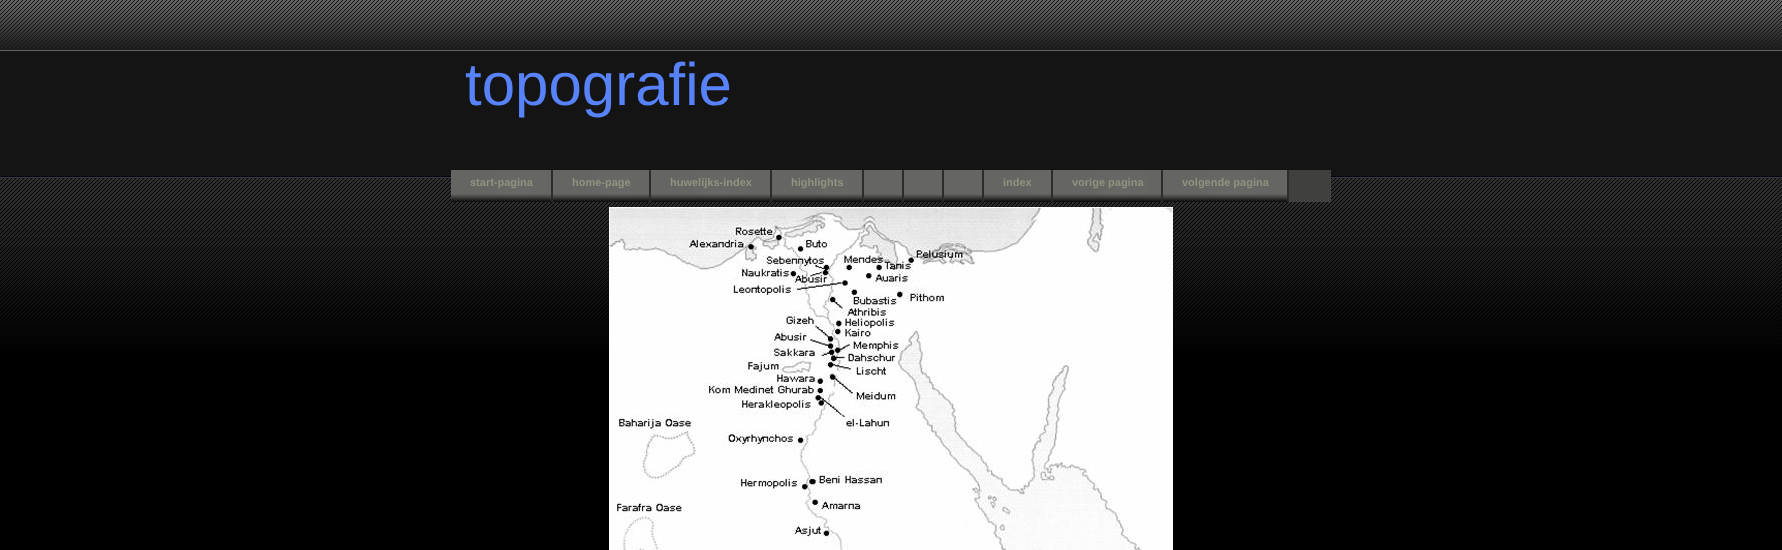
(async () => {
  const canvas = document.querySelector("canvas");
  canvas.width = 1782;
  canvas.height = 550;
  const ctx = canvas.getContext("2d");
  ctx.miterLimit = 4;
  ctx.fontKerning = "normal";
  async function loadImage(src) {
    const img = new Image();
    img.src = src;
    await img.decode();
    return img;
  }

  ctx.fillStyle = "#000000";
  ctx.fillRect(0, 0, 1782, 550);
  ctx.drawImage(await loadImage("img/1.png"), 0, 0, 1782, 349);
  ctx.fillStyle = "#40403e";
  ctx.fillRect(1289, 170, 42, 32);
  ctx.drawImage(await loadImage("img/2.png"), 451, 170, 100, 32);
  ctx.fillStyle = "#2c2c2a";
  ctx.fillRect(551, 170, 2, 32);
  ctx.drawImage(await loadImage("img/3.png"), 553, 170, 96, 32);
  ctx.fillRect(649, 170, 2, 32);
  ctx.drawImage(await loadImage("img/4.png"), 651, 170, 119, 32);
  ctx.fillRect(770, 170, 2, 32);
  ctx.drawImage(await loadImage("img/5.png"), 772, 170, 90, 32);
  ctx.fillRect(862, 170, 2, 32);
  ctx.drawImage(await loadImage("img/6.png"), 864, 170, 38, 32);
  ctx.fillRect(902, 170, 2, 32);
  ctx.drawImage(await loadImage("img/6.png"), 904, 170, 38, 32);
  ctx.fillRect(942, 170, 2, 32);
  ctx.drawImage(await loadImage("img/6.png"), 944, 170, 38, 32);
  ctx.fillRect(982, 170, 2, 32);
  ctx.drawImage(await loadImage("img/7.png"), 984, 170, 67, 32);
  ctx.fillRect(1051, 170, 2, 32);
  ctx.drawImage(await loadImage("img/8.png"), 1053, 170, 108, 32);
  ctx.fillRect(1161, 170, 2, 32);
  ctx.drawImage(await loadImage("img/9.png"), 1163, 170, 124, 32);
  ctx.fillRect(1287, 170, 2, 32);
  ctx.drawImage(await loadImage("img/10.png"), 609, 207, 564, 343);
  ctx.font = "60px Liberation Sans";
  ctx.fillStyle = "#5882fa";
  ctx.fillText("topografie", 465, 105);
  ctx.font = "bold 11px Liberation Sans";
  ctx.fillStyle = "#929280";
  for (const [text, x, y] of [
    ["start-pagina", 470, 186],
    ["home-page", 572, 186],
    ["huwelijks-index", 670, 186],
    ["highlights", 791, 186],
    ["index", 1003, 186],
    ["vorige pagina", 1072, 186],
    ["volgende pagina", 1182, 186],
  ]) {
    ctx.fillText(text, x, y);
  }
})();
